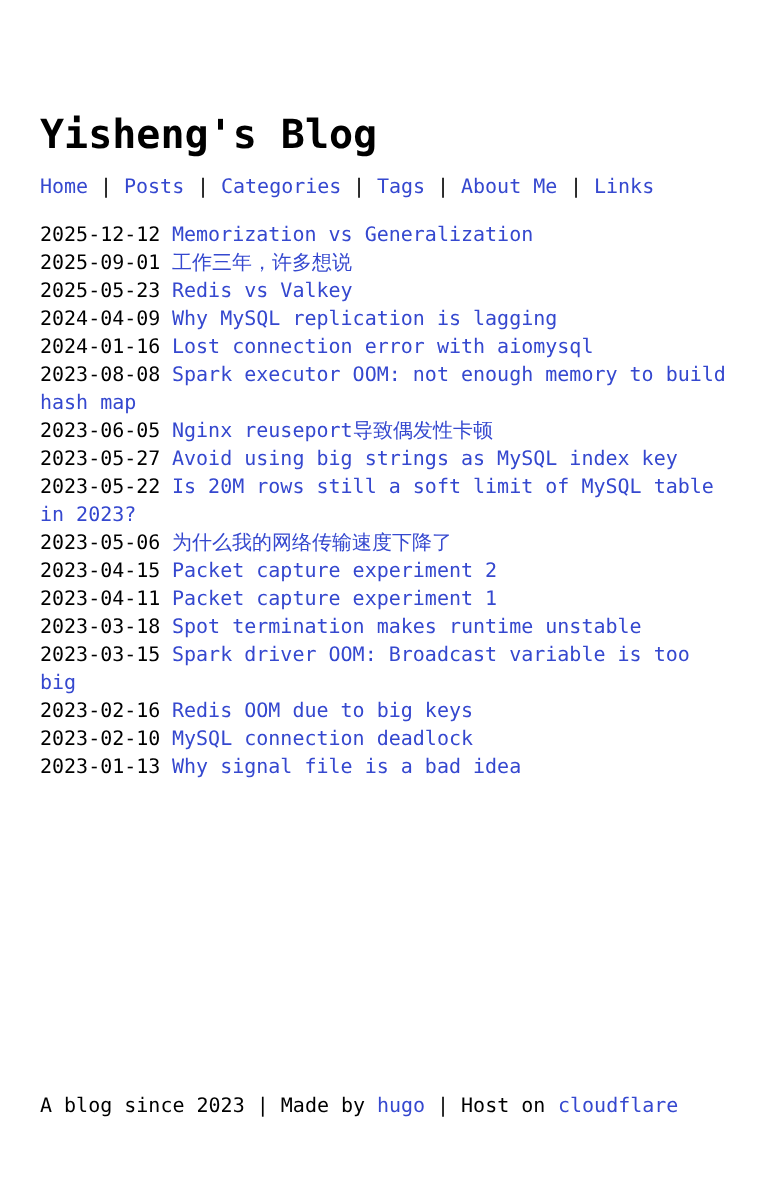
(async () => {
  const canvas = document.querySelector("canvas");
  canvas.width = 772;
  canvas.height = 1200;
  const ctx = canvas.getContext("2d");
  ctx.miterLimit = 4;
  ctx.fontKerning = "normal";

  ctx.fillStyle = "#ffffff";
  ctx.fillRect(0, 0, 772, 1200);
  ctx.font = "bold 40px DejaVu Sans Mono";
  ctx.fillStyle = "#000000";
  ctx.fillText("Yisheng's Blog", 40, 148);
  ctx.font = "20px DejaVu Sans Mono";
  ctx.fillStyle = "#3548cf";
  ctx.fillText("Home", 40, 193);
  ctx.fillStyle = "#000000";
  ctx.fillText("|", 100, 193);
  ctx.fillStyle = "#3548cf";
  ctx.fillText("Posts", 124, 193);
  ctx.fillStyle = "#000000";
  ctx.fillText("|", 197, 193);
  ctx.fillStyle = "#3548cf";
  ctx.fillText("Categories", 221, 193);
  ctx.fillStyle = "#000000";
  ctx.fillText("|", 353, 193);
  ctx.fillStyle = "#3548cf";
  ctx.fillText("Tags", 377, 193);
  ctx.fillStyle = "#000000";
  ctx.fillText("|", 437, 193);
  ctx.fillStyle = "#3548cf";
  ctx.fillText("About Me", 461, 193);
  ctx.fillStyle = "#000000";
  ctx.fillText("|", 570, 193);
  ctx.fillStyle = "#3548cf";
  ctx.fillText("Links", 594, 193);
  ctx.fillStyle = "#000000";
  ctx.fillText("2025-12-12", 40, 241);
  ctx.fillStyle = "#3548cf";
  ctx.fillText("Memorization vs Generalization", 172, 241);
  ctx.fillStyle = "#000000";
  ctx.fillText("2025-09-01", 40, 269);
  ctx.font = "500 20px WenQuanYi Zen Hei";
  ctx.fillStyle = "#3548cf";
  ctx.fillText("工作三年，许多想说", 172, 269);
  ctx.font = "20px DejaVu Sans Mono";
  ctx.fillStyle = "#000000";
  ctx.fillText("2025-05-23", 40, 297);
  ctx.fillStyle = "#3548cf";
  ctx.fillText("Redis vs Valkey", 172, 297);
  ctx.fillStyle = "#000000";
  ctx.fillText("2024-04-09", 40, 325);
  ctx.fillStyle = "#3548cf";
  ctx.fillText("Why MySQL replication is lagging", 172, 325);
  ctx.fillStyle = "#000000";
  ctx.fillText("2024-01-16", 40, 353);
  ctx.fillStyle = "#3548cf";
  ctx.fillText("Lost connection error with aiomysql", 172, 353);
  ctx.fillStyle = "#000000";
  ctx.fillText("2023-08-08", 40, 381);
  ctx.fillStyle = "#3548cf";
  ctx.fillText("Spark executor OOM: not enough memory to build", 172, 381);
  ctx.fillText("hash map", 40, 409);
  ctx.fillStyle = "#000000";
  ctx.fillText("2023-06-05", 40, 437);
  ctx.fillStyle = "#3548cf";
  ctx.fillText("Nginx reuseport", 172, 437);
  ctx.font = "500 20px WenQuanYi Zen Hei";
  ctx.fillText("导致偶发性卡顿", 353, 437);
  ctx.font = "20px DejaVu Sans Mono";
  ctx.fillStyle = "#000000";
  ctx.fillText("2023-05-27", 40, 465);
  ctx.fillStyle = "#3548cf";
  ctx.fillText("Avoid using big strings as MySQL index key", 172, 465);
  ctx.fillStyle = "#000000";
  ctx.fillText("2023-05-22", 40, 493);
  ctx.fillStyle = "#3548cf";
  ctx.fillText("Is 20M rows still a soft limit of MySQL table", 172, 493);
  ctx.fillText("in 2023?", 40, 521);
  ctx.fillStyle = "#000000";
  ctx.fillText("2023-05-06", 40, 549);
  ctx.font = "500 20px WenQuanYi Zen Hei";
  ctx.fillStyle = "#3548cf";
  ctx.fillText("为什么我的网络传输速度下降了", 172, 549);
  ctx.font = "20px DejaVu Sans Mono";
  ctx.fillStyle = "#000000";
  ctx.fillText("2023-04-15", 40, 577);
  ctx.fillStyle = "#3548cf";
  ctx.fillText("Packet capture experiment 2", 172, 577);
  ctx.fillStyle = "#000000";
  ctx.fillText("2023-04-11", 40, 605);
  ctx.fillStyle = "#3548cf";
  ctx.fillText("Packet capture experiment 1", 172, 605);
  ctx.fillStyle = "#000000";
  ctx.fillText("2023-03-18", 40, 633);
  ctx.fillStyle = "#3548cf";
  ctx.fillText("Spot termination makes runtime unstable", 172, 633);
  ctx.fillStyle = "#000000";
  ctx.fillText("2023-03-15", 40, 661);
  ctx.fillStyle = "#3548cf";
  ctx.fillText("Spark driver OOM: Broadcast variable is too", 172, 661);
  ctx.fillText("big", 40, 689);
  ctx.fillStyle = "#000000";
  ctx.fillText("2023-02-16", 40, 717);
  ctx.fillStyle = "#3548cf";
  ctx.fillText("Redis OOM due to big keys", 172, 717);
  ctx.fillStyle = "#000000";
  ctx.fillText("2023-02-10", 40, 745);
  ctx.fillStyle = "#3548cf";
  ctx.fillText("MySQL connection deadlock", 172, 745);
  ctx.fillStyle = "#000000";
  ctx.fillText("2023-01-13", 40, 773);
  ctx.fillStyle = "#3548cf";
  ctx.fillText("Why signal file is a bad idea", 172, 773);
  ctx.fillStyle = "#000000";
  ctx.fillText("A blog since 2023 | Made by", 40, 1112);
  ctx.fillStyle = "#3548cf";
  ctx.fillText("hugo", 377, 1112);
  ctx.fillStyle = "#000000";
  ctx.fillText("| Host on", 437, 1112);
  ctx.fillStyle = "#3548cf";
  ctx.fillText("cloudflare", 558, 1112);
})();
